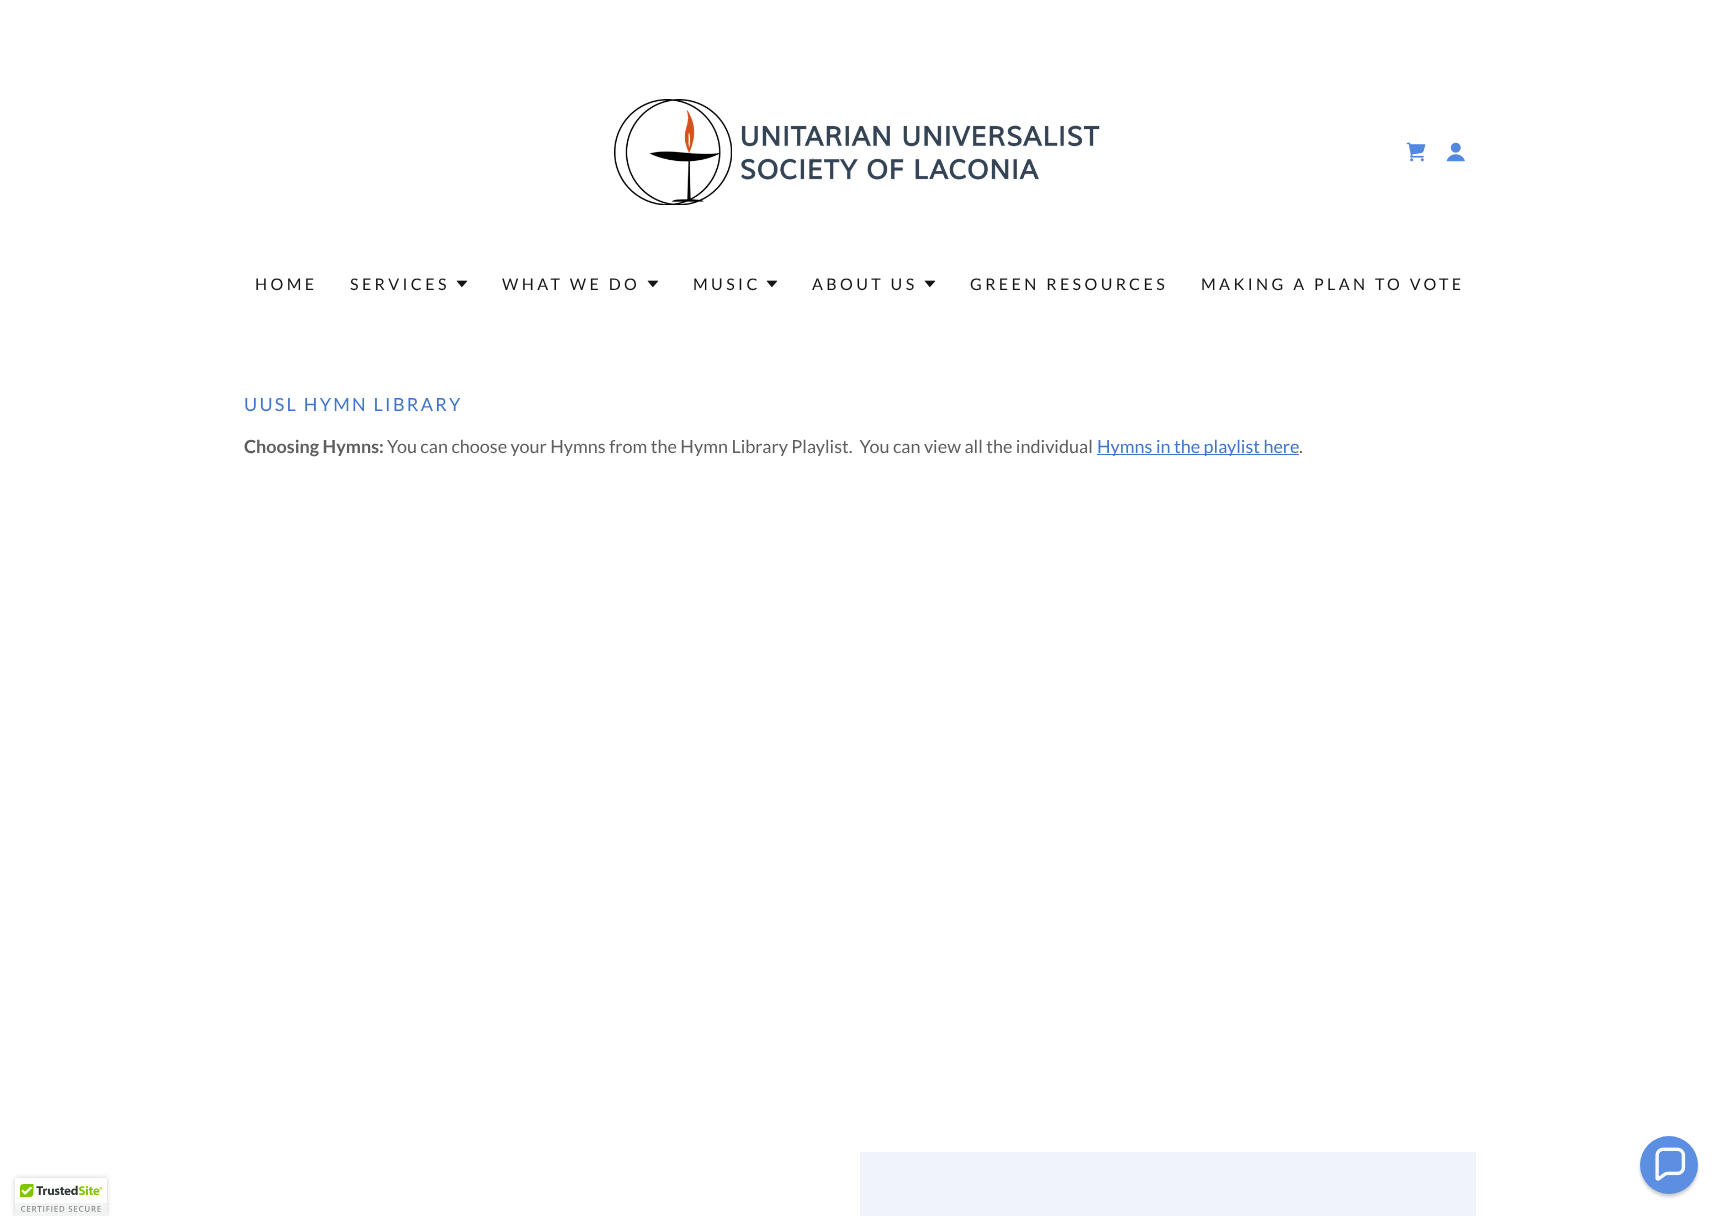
(async () => {
  const canvas = document.querySelector("canvas");
  canvas.width = 1720;
  canvas.height = 1216;
  const ctx = canvas.getContext("2d");
  ctx.miterLimit = 4;
  ctx.fontKerning = "normal";
  async function loadImage(src) {
    const img = new Image();
    img.src = src;
    await img.decode();
    return img;
  }

  ctx.fillStyle = "#ffffff";
  ctx.fillRect(0, 0, 1720, 1216);
  ctx.drawImage(await loadImage("img/1.png"), 614, 99, 486, 106);
  ctx.drawImage(await loadImage("img/2.png"), 1406, 142, 20, 20);
  ctx.drawImage(await loadImage("img/3.png"), 1446, 142, 19, 20);
  ctx.drawImage(await loadImage("img/4.png"), 456, 280, 12, 8);
  ctx.drawImage(await loadImage("img/4.png"), 647, 280, 12, 8);
  ctx.drawImage(await loadImage("img/4.png"), 766, 280, 12, 8);
  ctx.drawImage(await loadImage("img/4.png"), 924, 280, 12, 8);
  ctx.fillStyle = "#4275c9";
  ctx.fillRect(1097, 454, 202, 1);
  ctx.fillStyle = "#f1f3fc";
  ctx.fillRect(860, 1152, 616, 64);
  ctx.fillStyle = "rgba(0, 0, 0, 0.2)";
  ctx.filter = "blur(2.5px)";
  ctx.beginPath();
  ctx.roundRect(15, 1178, 92, 38, 2);
  ctx.fill();
  ctx.filter = "none";
  ctx.fillStyle = "#ffffff";
  ctx.beginPath();
  ctx.roundRect(15, 1178, 92, 38, [2, 2, 0, 0]);
  ctx.fill();
  ctx.drawImage(await loadImage("img/5.png"), 15, 1184, 92, 32);
  ctx.fillStyle = "rgba(13, 13, 13, 0.2)";
  ctx.filter = "blur(1.5px)";
  ctx.beginPath();
  ctx.roundRect(1640, 1139, 58, 58, 29);
  ctx.fill();
  ctx.filter = "none";
  ctx.fillStyle = "#5c8ee2";
  ctx.beginPath();
  ctx.arc(1669, 1165, 29, 0, Math.PI * 2);
  ctx.fill();
  ctx.drawImage(await loadImage("img/6.png"), 1655, 1147, 31, 34);
  ctx.letterSpacing = "3.4px";
  ctx.font = "16px Lato";
  ctx.fillStyle = "#151515";
  for (const [text, x, y] of [
    ["HOME", 255, 290],
    ["SERVICES", 350, 290],
    ["WHAT WE DO", 502, 290],
    ["MUSIC", 693, 290],
    ["ABOUT US", 812, 290],
    ["GREEN RESOURCES", 970, 290],
    ["MAKING A PLAN TO VOTE", 1201, 290],
  ]) {
    ctx.fillText(text, x, y);
  }
  ctx.letterSpacing = "2.25px";
  ctx.font = "18px Lato";
  ctx.fillStyle = "#4275c9";
  ctx.fillText("UUSL HYMN LIBRARY", 244, 411);
  ctx.letterSpacing = "0px";
  ctx.font = "bold 18px Lato";
  ctx.fillStyle = "#5e5e5e";
  ctx.fillText("Choosing Hymns:", 244, 453);
  ctx.font = "18px Lato";
  ctx.fillText("You can choose your Hymns from the Hymn Library Playlist.  You can view all the individual", 387, 453);
  ctx.fillStyle = "#4275c9";
  ctx.fillText("Hymns in the playlist here", 1097, 453);
  ctx.fillStyle = "#5e5e5e";
  ctx.fillText(".", 1299, 453);
})();
